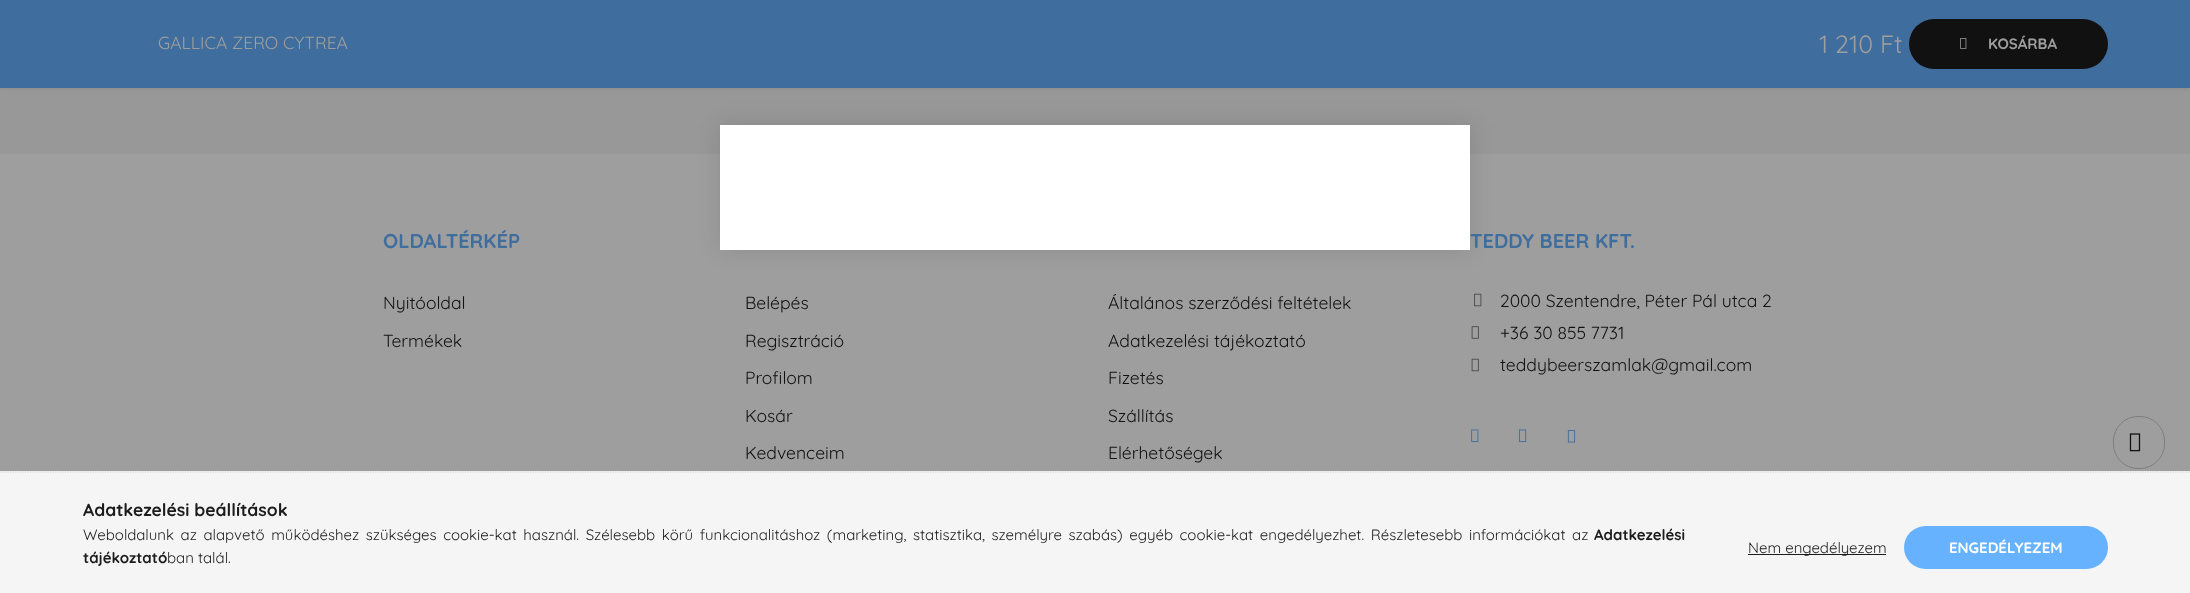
(async () => {
  const canvas = document.querySelector("canvas");
  canvas.width = 2190;
  canvas.height = 593;
  const ctx = canvas.getContext("2d");
  ctx.miterLimit = 4;
  ctx.fontKerning = "normal";
  async function loadImage(src) {
    const img = new Image();
    img.src = src;
    await img.decode();
    return img;
  }
  let path;

  ctx.fillStyle = "#989898";
  ctx.fillRect(0, 0, 2190, 593);
  ctx.fillStyle = "rgba(0, 0, 0, 0.07)";
  ctx.filter = "blur(1.5px)";
  ctx.beginPath();
  ctx.rect(0, 1, 2190, 88);
  ctx.fill();
  ctx.filter = "none";
  ctx.fillStyle = "#3f6e9e";
  ctx.fillRect(0, 0, 2190, 88);
  ctx.fillStyle = "#111111";
  ctx.beginPath();
  ctx.roundRect(1909, 19, 199, 50, 25);
  ctx.fill();
  ctx.drawImage(await loadImage("img/1.png"), 1960, 38, 7, 11);
  ctx.fillStyle = "#9e9e9e";
  ctx.fillRect(0, 154, 2190, 317);
  ctx.drawImage(await loadImage("img/2.png"), 1474, 293, 8, 14);
  ctx.drawImage(await loadImage("img/3.png"), 1471, 326, 8, 13);
  ctx.drawImage(await loadImage("img/4.png"), 1471, 358, 8, 14);
  ctx.drawImage(await loadImage("img/5.png"), 1471, 429, 8, 13);
  ctx.drawImage(await loadImage("img/6.png"), 1519, 429, 8, 13);
  ctx.drawImage(await loadImage("img/7.png"), 1567, 430, 9, 13);
  ctx.fillStyle = "rgba(0, 0, 0, 0.1)";
  ctx.filter = "blur(12.5px)";
  ctx.beginPath();
  ctx.rect(720, 125, 750, 125);
  ctx.fill();
  ctx.filter = "none";
  ctx.fillStyle = "#ffffff";
  ctx.fillRect(720, 125, 750, 125);
  ctx.beginPath();
  ctx.roundRect(2113.5, 416.5, 51, 52, 24.5);
  ctx.strokeStyle = "#7e7e7e";
  ctx.stroke();
  ctx.drawImage(await loadImage("img/8.png"), 2129, 433, 12, 19);
  ctx.fillStyle = "#f5f5f5";
  ctx.fillRect(0, 471, 2190, 122);
  path = new Path2D("M0 472H2190");
  ctx.strokeStyle = "#cccccc";
  ctx.lineWidth = 1.2;
  ctx.setLineDash([1.25, 1.25]);
  ctx.stroke(path);
  ctx.fillStyle = "#1c1c1c";
  ctx.fillRect(1748, 554, 138, 1);
  ctx.fillStyle = "#66b2ff";
  ctx.beginPath();
  ctx.roundRect(1904, 526, 204, 43, 21.5);
  ctx.fill();
  ctx.font = "17.5px Quicksand";
  ctx.fillStyle = "#9e9e9e";
  ctx.fillText("GALLICA ZERO CYTREA", 158, 49);
  ctx.font = "25px Quicksand";
  ctx.fillText("1 210 Ft", 1819, 53);
  ctx.font = "bold 15px Quicksand";
  ctx.fillText("KOSÁRBA", 1988, 49);
  ctx.font = "bold 20px Quicksand";
  ctx.fillStyle = "#3f6e9e";
  ctx.fillText("OLDALTÉRKÉP", 383, 248);
  ctx.font = "17.5px Quicksand";
  ctx.fillStyle = "#111111";
  for (const [text, x, y] of [
    ["Nyitóoldal", 383, 309],
    ["Termékek", 383, 347],
    ["Belépés", 745, 309],
    ["Regisztráció", 745, 347],
    ["Profilom", 745, 384],
    ["Kosár", 745, 422],
    ["Kedvenceim", 745, 459],
    ["Általános szerződési feltételek", 1108, 309],
    ["Adatkezelési tájékoztató", 1108, 347],
    ["Fizetés", 1108, 384],
    ["Szállítás", 1108, 422],
    ["Elérhetőségek", 1108, 459],
  ]) {
    ctx.fillText(text, x, y);
  }
  ctx.font = "bold 20px Quicksand";
  ctx.fillStyle = "#3f6e9e";
  ctx.fillText("TEDDY BEER KFT.", 1470, 248);
  ctx.font = "17.5px Quicksand";
  ctx.fillStyle = "#111111";
  for (const [text, x, y] of [
    ["2000 Szentendre, Péter Pál utca 2", 1500, 307],
    ["+36 30 855 7731", 1500, 339],
    ["teddybeerszamlak@gmail.com", 1500, 371],
  ]) {
    ctx.fillText(text, x, y);
  }
  ctx.font = "bold 17.5px Quicksand";
  ctx.fillStyle = "#1c1c1c";
  ctx.fillText("Adatkezelési beállítások", 83, 516);
  ctx.wordSpacing = "2.5px";
  ctx.font = "15px Quicksand";
  ctx.fillText("Weboldalunk az alapvető működéshez szükséges cookie-kat használ. Szélesebb körű funkcionalitáshoz (marketing, statisztika, személyre szabás) egyéb cookie-kat engedélyezhet. Részletesebb információkat az", 83, 540);
  ctx.wordSpacing = "0px";
  ctx.font = "bold 15px Quicksand";
  ctx.fillText("Adatkezelési", 1594, 540);
  ctx.fillText("tájékoztató", 83, 563);
  ctx.font = "15px Quicksand";
  ctx.fillText("ban talál.", 167, 563);
  ctx.fillText("Nem engedélyezem", 1748, 553);
  ctx.font = "bold 15px Quicksand";
  ctx.fillStyle = "#ffffff";
  ctx.fillText("ENGEDÉLYEZEM", 1949, 553);
})();
